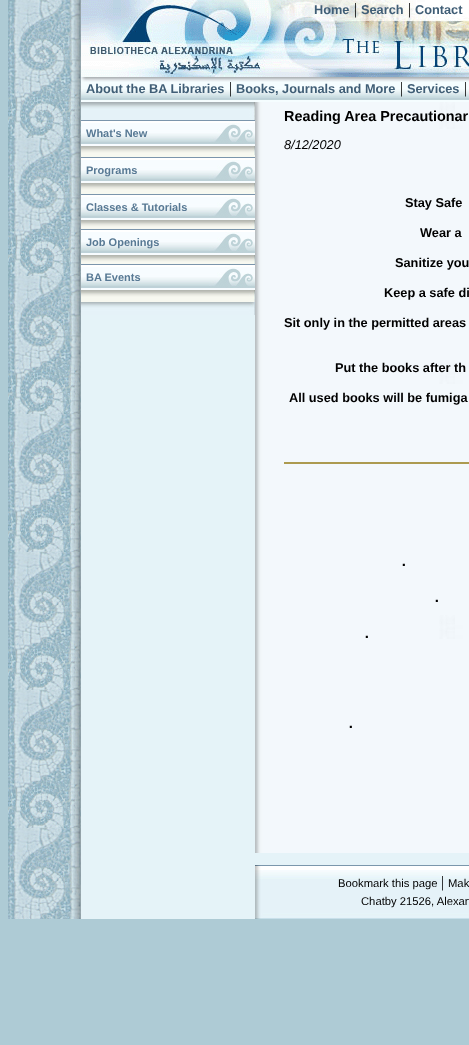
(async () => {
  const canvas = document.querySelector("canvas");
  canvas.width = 469;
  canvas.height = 1045;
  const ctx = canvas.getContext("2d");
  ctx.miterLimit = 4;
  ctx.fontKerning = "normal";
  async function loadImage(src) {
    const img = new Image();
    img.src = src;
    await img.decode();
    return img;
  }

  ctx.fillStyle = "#aecbd5";
  ctx.fillRect(0, 0, 469, 1045);
  ctx.drawImage(await loadImage("img/1.png"), 8, 0, 73, 919);
  ctx.fillStyle = "#e5f3f8";
  ctx.fillRect(81, 315, 388, 604);
  ctx.drawImage(await loadImage("img/2.png"), 81, 0, 388, 77);
  ctx.drawImage(await loadImage("img/3.png"), 81, 77, 388, 25);
  ctx.drawImage(await loadImage("img/4.png"), 81, 102, 174, 18);
  ctx.fillStyle = "#f7f9f0";
  ctx.fillRect(81, 155, 174, 39);
  ctx.drawImage(await loadImage("img/5.png"), 81, 120, 174, 35);
  ctx.drawImage(await loadImage("img/5.png"), 81, 157, 174, 35);
  ctx.drawImage(await loadImage("img/5.png"), 81, 194, 174, 35);
  ctx.drawImage(await loadImage("img/5.png"), 81, 229, 174, 35);
  ctx.drawImage(await loadImage("img/5.png"), 81, 264, 174, 35);
  ctx.drawImage(await loadImage("img/6.png"), 81, 299, 174, 16);
  ctx.drawImage(await loadImage("img/7.png"), 255, 102, 214, 19);
  ctx.drawImage(await loadImage("img/8.png"), 255, 121, 214, 732);
  ctx.fillStyle = "#ac9a50";
  ctx.fillRect(284, 462, 185, 2);
  ctx.drawImage(await loadImage("img/9.png"), 255, 865, 214, 54);
  ctx.font = "bold 12.75px Liberation Sans";
  ctx.fillStyle = "#405e76";
  ctx.fillText("Home", 314, 14);
  ctx.font = "16px Liberation Serif";
  ctx.fillStyle = "#000000";
  ctx.fillText("|", 354, 14);
  ctx.font = "bold 12.75px Liberation Sans";
  ctx.fillStyle = "#405e76";
  ctx.fillText("Search", 361, 14);
  ctx.font = "16px Liberation Serif";
  ctx.fillStyle = "#000000";
  ctx.fillText("|", 408, 14);
  ctx.font = "bold 12.75px Liberation Sans";
  ctx.fillStyle = "#405e76";
  ctx.fillText("Contact", 415, 14);
  ctx.fillText("About the BA Libraries", 86, 93);
  ctx.font = "16px Liberation Serif";
  ctx.fillStyle = "#000000";
  ctx.fillText("|", 229, 93);
  ctx.font = "bold 12.75px Liberation Sans";
  ctx.fillStyle = "#405e76";
  ctx.fillText("Books, Journals and More", 236, 93);
  ctx.font = "16px Liberation Serif";
  ctx.fillStyle = "#000000";
  ctx.fillText("|", 400, 93);
  ctx.font = "bold 12.75px Liberation Sans";
  ctx.fillStyle = "#405e76";
  ctx.fillText("Services", 407, 93);
  ctx.font = "16px Liberation Serif";
  ctx.fillStyle = "#000000";
  ctx.fillText("|", 464, 93);
  ctx.font = "bold 11px Liberation Sans";
  ctx.fillStyle = "#587994";
  for (const [text, x, y] of [
    ["What's New", 86, 137],
    ["Programs", 86, 174],
    ["Classes & Tutorials", 86, 211],
    ["Job Openings", 86, 246],
    ["BA Events", 86, 281],
  ]) {
    ctx.fillText(text, x, y);
  }
  ctx.font = "bold 14.4px Liberation Sans";
  ctx.fillStyle = "#000000";
  ctx.fillText("Reading Area Precautionar", 284, 121);
  ctx.font = "italic 12.75px Liberation Sans";
  ctx.fillText("8/12/2020", 284, 149);
  ctx.font = "bold 12.75px Liberation Sans";
  for (const [text, x, y] of [
    ["Stay Safe", 405, 207],
    ["Wear a", 420, 237],
    ["Sanitize you", 395, 267],
    ["Keep a safe di", 384, 297],
    ["Sit only in the permitted areas", 284, 327],
    ["Put the books after th", 335, 372],
    ["All used books will be fumiga", 289, 402],
  ]) {
    ctx.fillText(text, x, y);
  }
  ctx.direction = "rtl";
  ctx.font = "bold 15px Liberation Sans";
  for (const [text, x, y] of [
    [".", 406, 566],
    [".", 439, 602],
    [".", 369, 638],
    [".", 353, 728],
  ]) {
    ctx.fillText(text, x, y);
  }
  ctx.direction = "ltr";
  ctx.font = "11.25px Liberation Sans";
  ctx.fillText("Bookmark this page", 338, 887);
  ctx.font = "16px Liberation Serif";
  ctx.fillText("|", 441, 887);
  ctx.font = "11.25px Liberation Sans";
  ctx.fillText("Mak", 448, 887);
  ctx.fillText("Chatby 21526, Alexan", 361, 905);
})();
